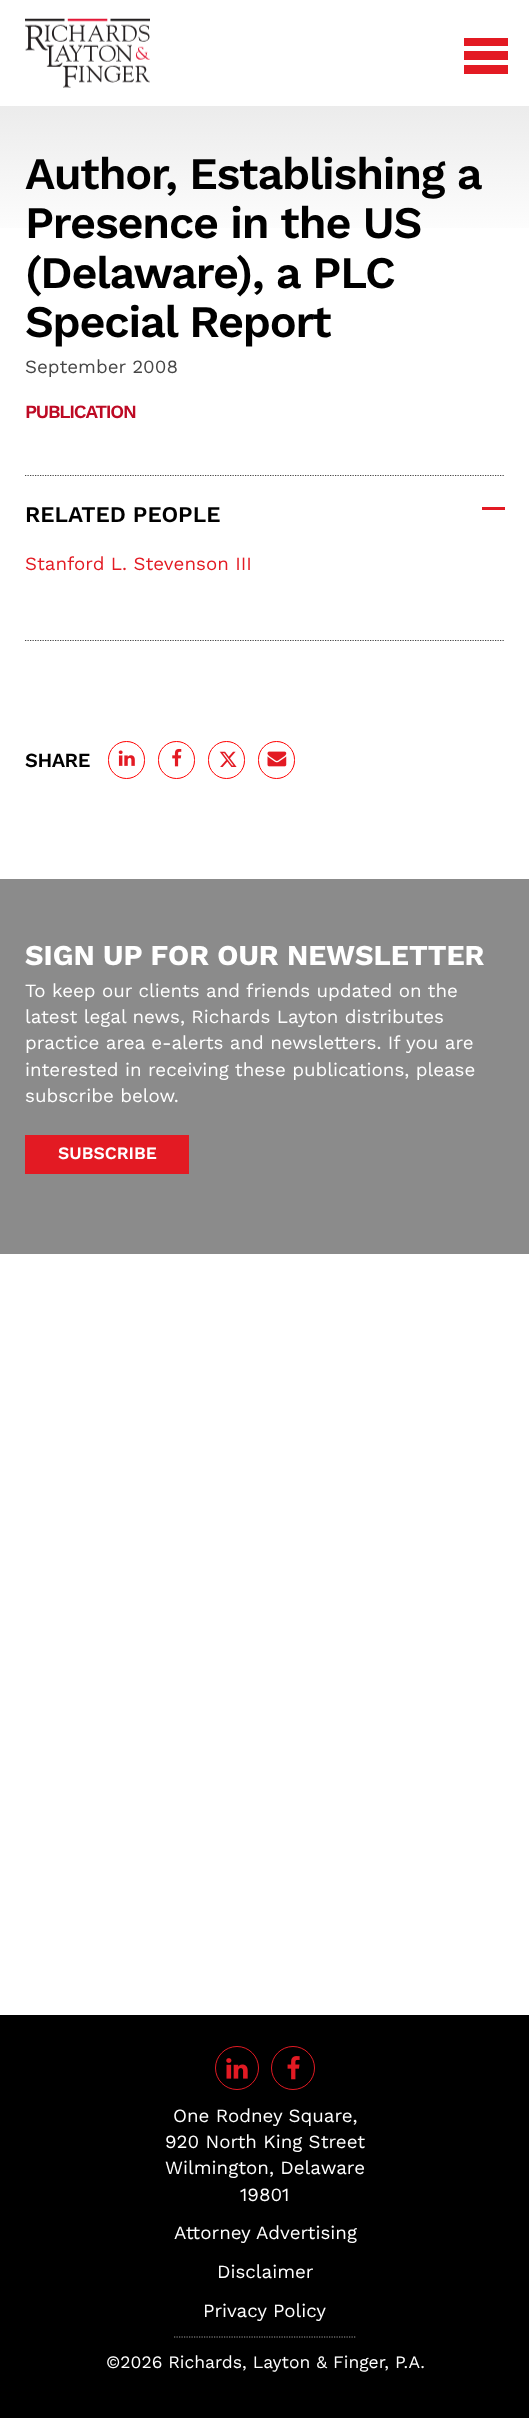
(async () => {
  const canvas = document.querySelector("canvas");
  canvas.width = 529;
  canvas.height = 2418;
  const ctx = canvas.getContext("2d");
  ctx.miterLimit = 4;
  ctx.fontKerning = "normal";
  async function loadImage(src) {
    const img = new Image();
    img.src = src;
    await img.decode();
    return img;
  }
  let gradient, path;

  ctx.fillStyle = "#ffffff";
  ctx.fillRect(0, 0, 529, 2418);
  ctx.drawImage(await loadImage("img/1.png"), 25, 18, 125, 70);
  for (const [x, y, w, h, color] of [
    [464, 38, 44, 8, "#e31a23"],
    [464, 51, 44, 9, "#e31a23"],
    [464, 65, 44, 9, "#e31a23"],
  ]) {
    ctx.fillStyle = color;
    ctx.fillRect(x, y, w, h);
  }
  gradient = ctx.createLinearGradient(265, 0, 265, 879);
  gradient.addColorStop(0, "#dddddd");
  gradient.addColorStop(0.28, "#ffffff");
  gradient.addColorStop(1, "#ffffff");
  ctx.fillStyle = gradient;
  ctx.fillRect(0, 106, 529, 122);
  path = new Path2D("M25 640.5H505");
  ctx.strokeStyle = "#464646";
  ctx.lineWidth = 1.2;
  ctx.setLineDash([1.25, 1.25]);
  ctx.stroke(path);
  path = new Path2D("M25 475.5H505");
  ctx.stroke(path);
  ctx.fillStyle = "#e31a23";
  ctx.fillRect(482, 507, 23, 3);
  ctx.beginPath();
  ctx.roundRect(108.5, 741.5, 36, 37, 18);
  ctx.strokeStyle = "#ff0000";
  ctx.lineWidth = 1;
  ctx.setLineDash([]);
  ctx.stroke();
  ctx.drawImage(await loadImage("img/2.png"), 118, 750, 17, 16);
  ctx.beginPath();
  ctx.roundRect(158.5, 741.5, 36, 37, 18);
  ctx.stroke();
  ctx.drawImage(await loadImage("img/3.png"), 172, 748, 10, 19);
  ctx.beginPath();
  ctx.roundRect(208.5, 741.5, 36, 37, 18);
  ctx.stroke();
  ctx.drawImage(await loadImage("img/4.png"), 219, 751, 18, 16);
  ctx.beginPath();
  ctx.roundRect(258.5, 741.5, 36, 37, 18);
  ctx.stroke();
  ctx.drawImage(await loadImage("img/5.png"), 267, 751, 20, 16);
  for (const [x, y, w, h, color] of [
    [0, 879, 529, 375, "#8b8b8b"],
    [25, 1135, 164, 39, "#e31a23"],
    [0, 2015, 529, 403, "#000000"],
  ]) {
    ctx.fillStyle = color;
    ctx.fillRect(x, y, w, h);
  }
  ctx.beginPath();
  ctx.arc(237, 2068, 21.5, 0, Math.PI * 2);
  ctx.strokeStyle = "#e31a23";
  ctx.stroke();
  ctx.drawImage(await loadImage("img/6.png"), 226, 2058, 22, 21);
  ctx.beginPath();
  ctx.arc(293, 2068, 21.5, 0, Math.PI * 2);
  ctx.stroke();
  ctx.drawImage(await loadImage("img/7.png"), 287, 2056, 13, 24);
  path = new Path2D("M174 2337H356");
  ctx.strokeStyle = "#979797";
  ctx.lineWidth = 1.2;
  ctx.setLineDash([1.25, 1.25]);
  ctx.stroke(path);
  ctx.letterSpacing = "-1.25px";
  ctx.font = "600 45px Work Sans";
  for (const [text, x, y] of [
    ["Author, Establishing a", 25, 189],
    ["Presence in the US", 25, 238],
    ["(Delaware), a PLC", 25, 288],
    ["Special Report", 25, 337],
  ]) {
    ctx.fillText(text, x, y);
  }
  ctx.letterSpacing = "0px";
  ctx.font = "18.75px Work Sans";
  ctx.fillStyle = "#464646";
  ctx.fillText("September 2008", 25, 373);
  ctx.letterSpacing = "-1.25px";
  ctx.font = "600 18.75px Work Sans";
  ctx.fillStyle = "#bd0a24";
  ctx.fillText("PUBLICATION", 25, 418);
  ctx.letterSpacing = "0px";
  ctx.font = "600 22.5px Work Sans";
  ctx.fillStyle = "#000000";
  ctx.fillText("RELATED PEOPLE", 25, 522);
  ctx.font = "18.75px Work Sans";
  ctx.fillStyle = "#e31a23";
  ctx.fillText("Stanford L. Stevenson III", 25, 570);
  ctx.letterSpacing = "-0.5px";
  ctx.font = "600 20px Work Sans";
  ctx.fillStyle = "#000000";
  ctx.fillText("SHARE", 25, 767);
  ctx.letterSpacing = "0px";
  ctx.font = "bold 28.75px Work Sans";
  ctx.fillStyle = "#ffffff";
  ctx.fillText("SIGN UP FOR OUR NEWSLETTER", 25, 965);
  ctx.font = "18.75px Work Sans";
  for (const [text, x, y] of [
    ["To keep our clients and friends updated on the", 25, 997],
    ["latest legal news, Richards Layton distributes", 25, 1023],
    ["practice area e-alerts and newsletters. If you are", 25, 1049],
    ["interested in receiving these publications, please", 25, 1076],
    ["subscribe below.", 25, 1102],
  ]) {
    ctx.fillText(text, x, y);
  }
  ctx.font = "600 17.5px Work Sans";
  ctx.fillText("SUBSCRIBE", 58, 1159);
  ctx.font = "18.75px Work Sans";
  for (const [text, x, y] of [
    ["One Rodney Square,", 173, 2122],
    ["920 North King Street", 165, 2148],
    ["Wilmington, Delaware", 165, 2174],
    ["19801", 240, 2201],
    ["Attorney Advertising", 174, 2239],
    ["Disclaimer", 217, 2278],
    ["Privacy Policy", 203, 2317],
  ]) {
    ctx.fillText(text, x, y);
  }
  ctx.font = "17.5px Work Sans";
  ctx.fillText("©2026 Richards, Layton & Finger, P.A.", 106, 2368);
})();
